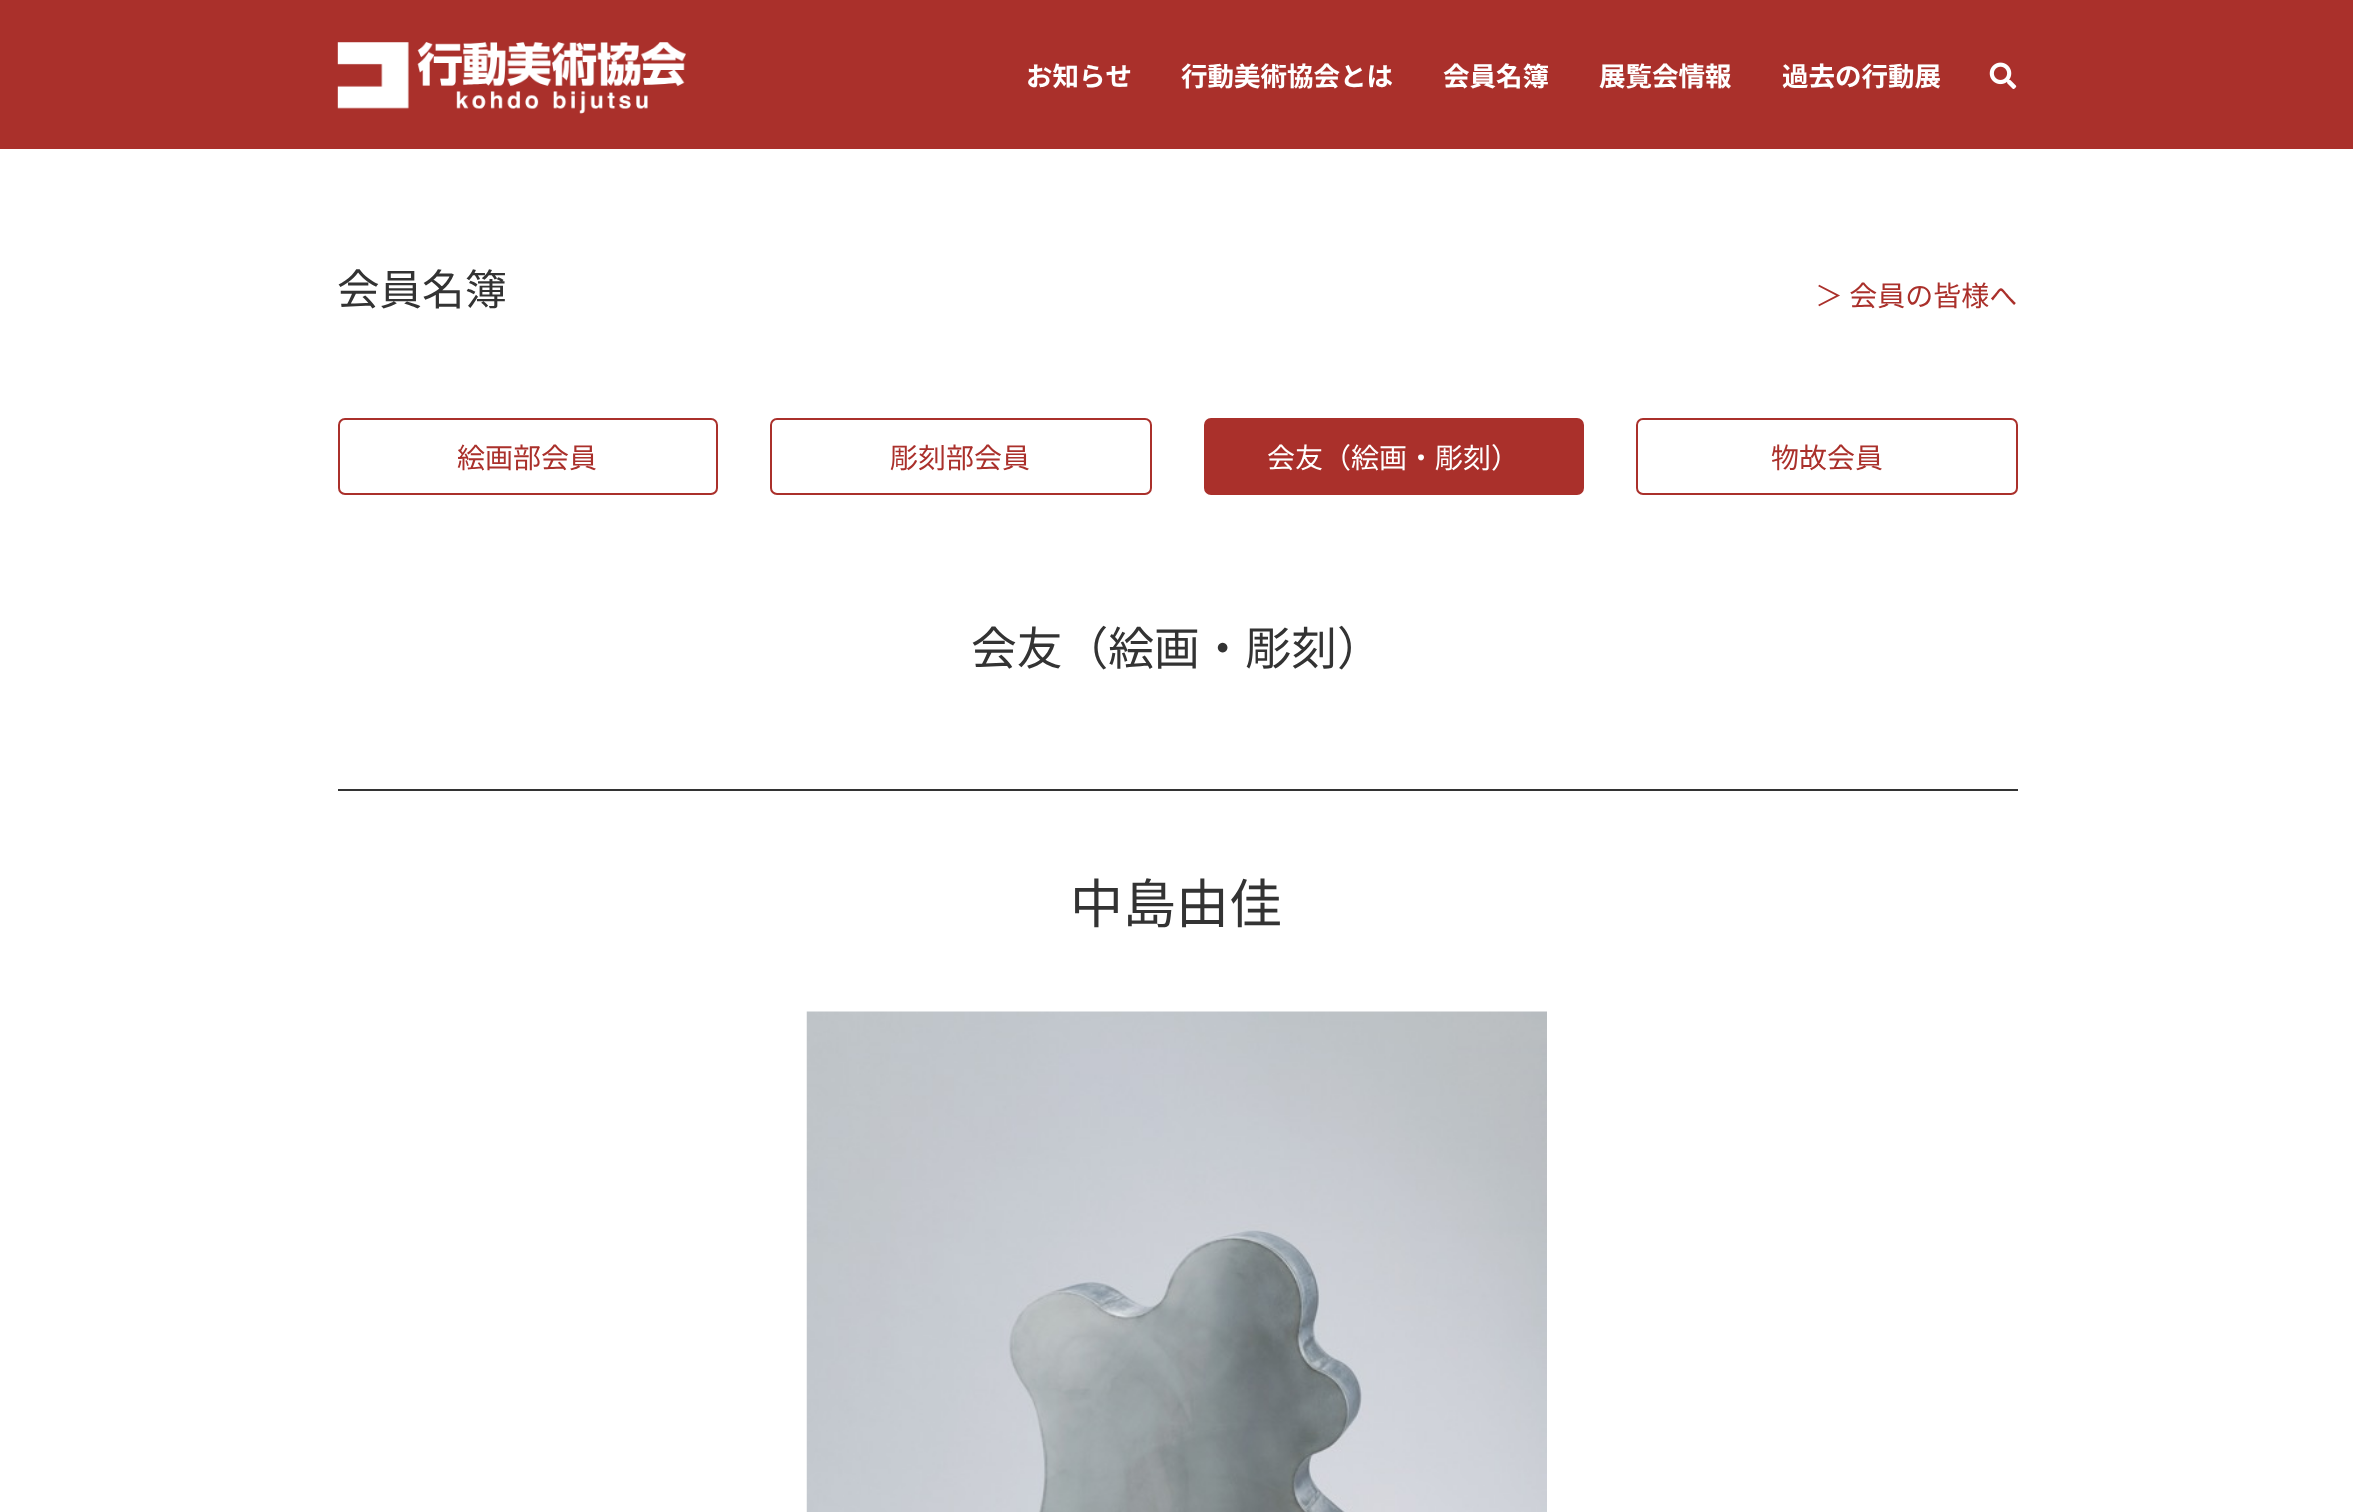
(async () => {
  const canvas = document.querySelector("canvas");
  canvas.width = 2353;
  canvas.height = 1512;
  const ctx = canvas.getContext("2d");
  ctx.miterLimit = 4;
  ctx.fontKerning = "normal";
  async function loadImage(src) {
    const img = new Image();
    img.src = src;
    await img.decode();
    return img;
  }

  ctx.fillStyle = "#ffffff";
  ctx.fillRect(0, 0, 2353, 1512);
  ctx.fillStyle = "#aa302b";
  ctx.fillRect(0, 0, 2353, 149);
  ctx.drawImage(await loadImage("img/1.png"), 337, 42, 349, 72);
  ctx.drawImage(await loadImage("img/2.png"), 1989, 62, 28, 27);
  ctx.beginPath();
  ctx.roundRect(339, 419, 378, 75, 6);
  ctx.strokeStyle = "#aa302b";
  ctx.lineWidth = 2;
  ctx.stroke();
  ctx.beginPath();
  ctx.roundRect(771, 419, 380, 75, 6);
  ctx.stroke();
  ctx.beginPath();
  ctx.roundRect(1205, 419, 378, 75, 6);
  ctx.fill();
  ctx.stroke();
  ctx.beginPath();
  ctx.roundRect(1637, 419, 380, 75, 6);
  ctx.stroke();
  ctx.fillStyle = "#333333";
  ctx.fillRect(338, 789, 1680, 2);
  ctx.drawImage(await loadImage("img/3.png"), 806, 1011, 741, 501);
  ctx.font = "bold 26.5px Noto Sans JP";
  ctx.fillStyle = "#ffffff";
  for (const [text, x, y] of [
    ["お知らせ", 1026, 86],
    ["行動美術協会とは", 1181, 86],
    ["会員名簿", 1443, 86],
    ["展覧会情報", 1599, 86],
    ["過去の行動展", 1782, 86],
  ]) {
    ctx.fillText(text, x, y);
  }
  ctx.font = "42.5px Noto Sans JP";
  ctx.fillStyle = "#333333";
  ctx.fillText("会員名簿", 337, 305);
  ctx.font = "28px Noto Sans JP";
  ctx.fillStyle = "#aa302b";
  for (const [text, x, y] of [
    ["＞ 会員の皆様へ", 1815, 306],
    ["絵画部会員", 457, 468],
    ["彫刻部会員", 890, 468],
  ]) {
    ctx.fillText(text, x, y);
  }
  ctx.fillStyle = "#ffffff";
  ctx.fillText("会友（絵画・彫刻）", 1267, 468);
  ctx.fillStyle = "#aa302b";
  ctx.fillText("物故会員", 1771, 468);
  ctx.font = "45.75px Noto Sans JP";
  ctx.fillStyle = "#333333";
  ctx.fillText("会友（絵画・彫刻）", 971, 665);
  ctx.font = "53px Noto Sans JP";
  ctx.fillText("中島由佳", 1070, 923);
})();
